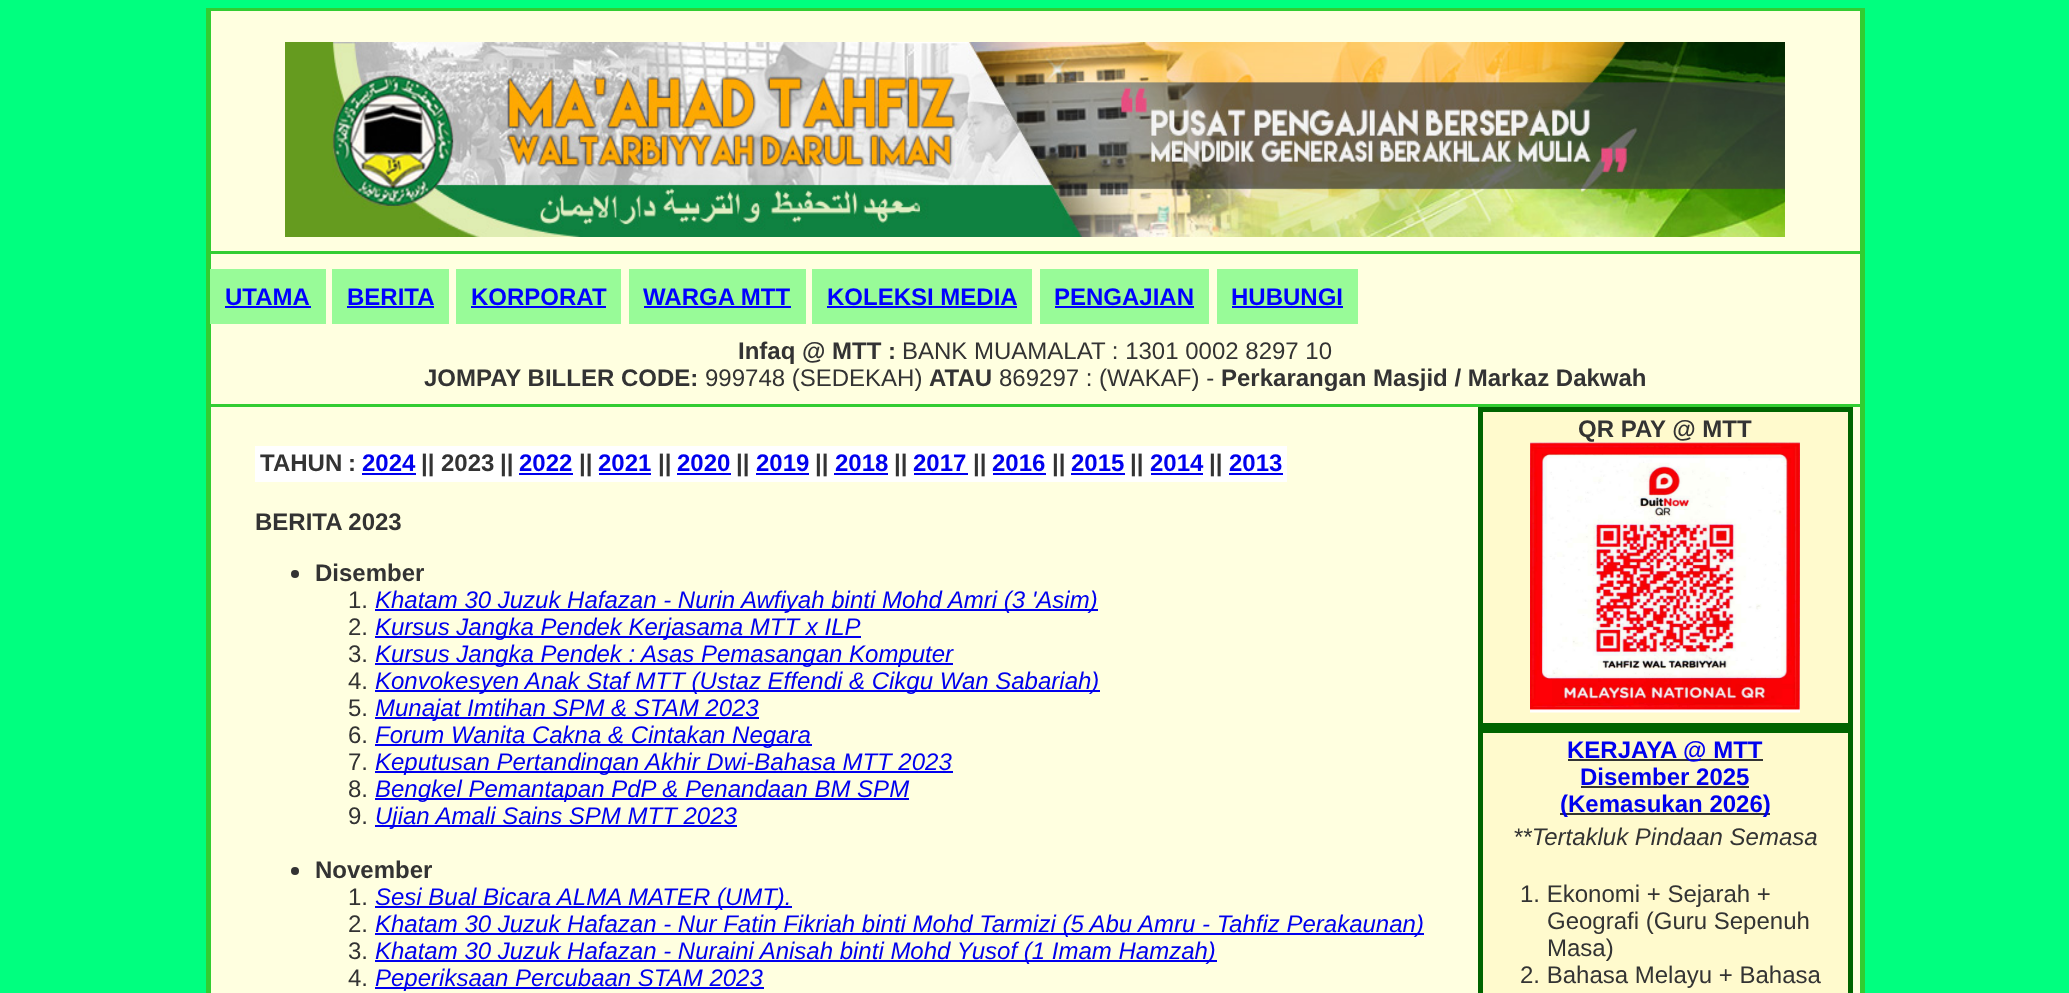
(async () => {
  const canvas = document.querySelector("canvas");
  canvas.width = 2069;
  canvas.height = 993;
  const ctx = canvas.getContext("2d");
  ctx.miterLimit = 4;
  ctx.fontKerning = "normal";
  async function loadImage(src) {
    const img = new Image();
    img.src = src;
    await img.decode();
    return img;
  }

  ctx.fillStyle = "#00ff7f";
  ctx.fillRect(0, 0, 2069, 993);
  for (const [x, y, w, h, color] of [
    [211, 11, 1649, 982, "#ffffe0"],
    [1860, 8, 5, 985, "#32cd32"],
    [206, 8, 5, 985, "#32cd32"],
    [210, 8, 1650, 3, "#32cd32"],
    [210, 251, 1650, 3, "#32cd32"],
  ]) {
    ctx.fillStyle = color;
    ctx.fillRect(x, y, w, h);
  }
  ctx.drawImage(await loadImage("img/1.png"), 285, 42, 1500, 195);
  for (const [x, y, w, h, color] of [
    [210, 404, 1650, 3, "#32cd32"],
    [210, 269, 116, 55, "#98fb98"],
    [225, 306, 86, 2, "#0000ff"],
    [332, 269, 117, 55, "#98fb98"],
    [347, 306, 87, 2, "#0000ff"],
    [456, 269, 165, 55, "#98fb98"],
    [471, 306, 135, 2, "#0000ff"],
    [629, 269, 177, 55, "#98fb98"],
    [644, 306, 147, 2, "#0000ff"],
    [812, 269, 220, 55, "#98fb98"],
    [827, 306, 190, 2, "#0000ff"],
    [1040, 269, 169, 55, "#98fb98"],
    [1055, 306, 139, 2, "#0000ff"],
    [1217, 269, 141, 55, "#98fb98"],
    [1232, 306, 111, 2, "#0000ff"],
  ]) {
    ctx.fillStyle = color;
    ctx.fillRect(x, y, w, h);
  }
  ctx.fillStyle = "#fffacd";
  ctx.beginPath();
  ctx.rect(1480.5, 409.5, 370, 316);
  ctx.fill();
  ctx.strokeStyle = "#006400";
  ctx.lineWidth = 5;
  ctx.stroke();
  ctx.drawImage(await loadImage("img/2.png"), 1530, 442, 270, 271);
  for (const [x, y, w, h, color] of [
    [255, 446, 1032, 36, "#ffffff"],
    [362, 473, 54, 2, "#0000ee"],
    [519, 473, 54, 2, "#0000ee"],
    [599, 473, 52, 2, "#0000ee"],
    [677, 473, 54, 2, "#0000ee"],
    [756, 473, 53, 2, "#0000ee"],
    [834, 473, 54, 2, "#0000ee"],
    [914, 473, 54, 2, "#0000ee"],
    [993, 473, 53, 2, "#0000ee"],
    [1071, 473, 54, 2, "#0000ee"],
    [1151, 473, 52, 2, "#0000ee"],
    [1229, 473, 54, 2, "#0000ee"],
  ]) {
    ctx.fillStyle = color;
    ctx.fillRect(x, y, w, h);
  }
  ctx.fillStyle = "#333333";
  ctx.beginPath();
  ctx.arc(295, 574, 4, 0, Math.PI * 2);
  ctx.fill();
  for (const [x, y, w, h, color] of [
    [375, 609, 723, 2, "#0000ee"],
    [375, 636, 486, 2, "#0000ee"],
    [375, 663, 578, 2, "#0000ee"],
    [375, 690, 725, 2, "#0000ee"],
    [375, 717, 384, 2, "#0000ee"],
    [375, 744, 437, 2, "#0000ee"],
    [375, 771, 578, 2, "#0000ee"],
    [375, 798, 534, 2, "#0000ee"],
    [375, 825, 362, 2, "#0000ee"],
  ]) {
    ctx.fillStyle = color;
    ctx.fillRect(x, y, w, h);
  }
  ctx.fillStyle = "#333333";
  ctx.beginPath();
  ctx.arc(295, 871, 4, 0, Math.PI * 2);
  ctx.fill();
  for (const [x, y, w, h, color] of [
    [375, 906, 417, 2, "#0000ee"],
    [375, 933, 1049, 2, "#0000ee"],
    [375, 960, 842, 2, "#0000ee"],
    [375, 987, 389, 2, "#0000ee"],
  ]) {
    ctx.fillStyle = color;
    ctx.fillRect(x, y, w, h);
  }
  ctx.fillStyle = "#fffacd";
  ctx.beginPath();
  ctx.rect(1480.5, 730.5, 370, 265);
  ctx.fill();
  ctx.stroke();
  for (const [x, y, w, h, color] of [
    [1568, 759, 195, 2, "#333333"],
    [1581, 786, 168, 2, "#333333"],
    [1560, 813, 210, 2, "#333333"],
  ]) {
    ctx.fillStyle = color;
    ctx.fillRect(x, y, w, h);
  }
  ctx.font = "bold 24px Liberation Sans";
  ctx.fillStyle = "#0000ff";
  for (const [text, x, y] of [
    ["UTAMA", 225, 305],
    ["BERITA", 347, 305],
    ["KORPORAT", 471, 305],
    ["WARGA MTT", 643, 305],
    ["KOLEKSI MEDIA", 827, 305],
    ["PENGAJIAN", 1054, 305],
    ["HUBUNGI", 1231, 305],
  ]) {
    ctx.fillText(text, x, y);
  }
  ctx.fillStyle = "#333333";
  ctx.fillText("Infaq @ MTT :", 738, 359);
  ctx.font = "24px Liberation Sans";
  ctx.fillText("BANK MUAMALAT : 1301 0002 8297 10", 902, 359);
  ctx.font = "bold 24px Liberation Sans";
  ctx.fillText("JOMPAY BILLER CODE:", 424, 386);
  ctx.font = "24px Liberation Sans";
  ctx.fillText("999748 (SEDEKAH)", 705, 386);
  ctx.font = "bold 24px Liberation Sans";
  ctx.fillText("ATAU", 929, 386);
  ctx.font = "24px Liberation Sans";
  ctx.fillText("869297 : (WAKAF) -", 999, 386);
  ctx.font = "bold 24px Liberation Sans";
  for (const [text, x, y] of [
    ["Perkarangan Masjid / Markaz Dakwah", 1221, 386],
    ["QR PAY @ MTT", 1578, 437],
    ["TAHUN", 260, 471],
    [":", 348, 471],
  ]) {
    ctx.fillText(text, x, y);
  }
  ctx.fillStyle = "#0000ee";
  ctx.fillText("2024", 362, 471);
  ctx.fillStyle = "#333333";
  for (const [text, x, y] of [
    ["||", 421, 471],
    ["2023", 441, 471],
    ["||", 500, 471],
  ]) {
    ctx.fillText(text, x, y);
  }
  ctx.fillStyle = "#0000ee";
  ctx.fillText("2022", 519, 471);
  ctx.fillStyle = "#333333";
  ctx.fillText("||", 579, 471);
  ctx.fillStyle = "#0000ee";
  ctx.fillText("2021", 598, 471);
  ctx.fillStyle = "#333333";
  ctx.fillText("||", 658, 471);
  ctx.fillStyle = "#0000ee";
  ctx.fillText("2020", 677, 471);
  ctx.fillStyle = "#333333";
  ctx.fillText("||", 736, 471);
  ctx.fillStyle = "#0000ee";
  ctx.fillText("2019", 756, 471);
  ctx.fillStyle = "#333333";
  ctx.fillText("||", 815, 471);
  ctx.fillStyle = "#0000ee";
  ctx.fillText("2018", 835, 471);
  ctx.fillStyle = "#333333";
  ctx.fillText("||", 894, 471);
  ctx.fillStyle = "#0000ee";
  ctx.fillText("2017", 913, 471);
  ctx.fillStyle = "#333333";
  ctx.fillText("||", 973, 471);
  ctx.fillStyle = "#0000ee";
  ctx.fillText("2016", 992, 471);
  ctx.fillStyle = "#333333";
  ctx.fillText("||", 1052, 471);
  ctx.fillStyle = "#0000ee";
  ctx.fillText("2015", 1071, 471);
  ctx.fillStyle = "#333333";
  ctx.fillText("||", 1130, 471);
  ctx.fillStyle = "#0000ee";
  ctx.fillText("2014", 1150, 471);
  ctx.fillStyle = "#333333";
  ctx.fillText("||", 1209, 471);
  ctx.fillStyle = "#0000ee";
  ctx.fillText("2013", 1229, 471);
  ctx.fillStyle = "#333333";
  ctx.fillText("BERITA 2023", 255, 530);
  ctx.fillText("Disember", 315, 581);
  ctx.font = "24px Liberation Sans";
  ctx.fillText("1.", 348, 608);
  ctx.font = "italic 24px Liberation Sans";
  ctx.fillStyle = "#0000ee";
  ctx.fillText("Khatam 30 Juzuk Hafazan - Nurin Awfiyah binti Mohd Amri (3 'Asim)", 375, 608);
  ctx.font = "24px Liberation Sans";
  ctx.fillStyle = "#333333";
  ctx.fillText("2.", 348, 635);
  ctx.font = "italic 24px Liberation Sans";
  ctx.fillStyle = "#0000ee";
  ctx.fillText("Kursus Jangka Pendek Kerjasama MTT x ILP", 375, 635);
  ctx.font = "24px Liberation Sans";
  ctx.fillStyle = "#333333";
  ctx.fillText("3.", 348, 662);
  ctx.font = "italic 24px Liberation Sans";
  ctx.fillStyle = "#0000ee";
  ctx.fillText("Kursus Jangka Pendek : Asas Pemasangan Komputer", 375, 662);
  ctx.font = "24px Liberation Sans";
  ctx.fillStyle = "#333333";
  ctx.fillText("4.", 348, 689);
  ctx.font = "italic 24px Liberation Sans";
  ctx.fillStyle = "#0000ee";
  ctx.fillText("Konvokesyen Anak Staf MTT (Ustaz Effendi & Cikgu Wan Sabariah)", 375, 689);
  ctx.font = "24px Liberation Sans";
  ctx.fillStyle = "#333333";
  ctx.fillText("5.", 348, 716);
  ctx.font = "italic 24px Liberation Sans";
  ctx.fillStyle = "#0000ee";
  ctx.fillText("Munajat Imtihan SPM & STAM 2023", 375, 716);
  ctx.font = "24px Liberation Sans";
  ctx.fillStyle = "#333333";
  ctx.fillText("6.", 348, 743);
  ctx.font = "italic 24px Liberation Sans";
  ctx.fillStyle = "#0000ee";
  ctx.fillText("Forum Wanita Cakna & Cintakan Negara", 375, 743);
  ctx.font = "24px Liberation Sans";
  ctx.fillStyle = "#333333";
  ctx.fillText("7.", 348, 770);
  ctx.font = "italic 24px Liberation Sans";
  ctx.fillStyle = "#0000ee";
  ctx.fillText("Keputusan Pertandingan Akhir Dwi-Bahasa MTT 2023", 375, 770);
  ctx.font = "24px Liberation Sans";
  ctx.fillStyle = "#333333";
  ctx.fillText("8.", 348, 797);
  ctx.font = "italic 24px Liberation Sans";
  ctx.fillStyle = "#0000ee";
  ctx.fillText("Bengkel Pemantapan PdP & Penandaan BM SPM", 375, 797);
  ctx.font = "24px Liberation Sans";
  ctx.fillStyle = "#333333";
  ctx.fillText("9.", 348, 824);
  ctx.font = "italic 24px Liberation Sans";
  ctx.fillStyle = "#0000ee";
  ctx.fillText("Ujian Amali Sains SPM MTT 2023", 375, 824);
  ctx.font = "bold 24px Liberation Sans";
  ctx.fillStyle = "#333333";
  ctx.fillText("November", 315, 878);
  ctx.font = "24px Liberation Sans";
  ctx.fillText("1.", 348, 905);
  ctx.font = "italic 24px Liberation Sans";
  ctx.fillStyle = "#0000ee";
  ctx.fillText("Sesi Bual Bicara ALMA MATER (UMT).", 375, 905);
  ctx.font = "24px Liberation Sans";
  ctx.fillStyle = "#333333";
  ctx.fillText("2.", 348, 932);
  ctx.font = "italic 24px Liberation Sans";
  ctx.fillStyle = "#0000ee";
  ctx.fillText("Khatam 30 Juzuk Hafazan - Nur Fatin Fikriah binti Mohd Tarmizi (5 Abu Amru - Tahfiz Perakaunan)", 375, 932);
  ctx.font = "24px Liberation Sans";
  ctx.fillStyle = "#333333";
  ctx.fillText("3.", 348, 959);
  ctx.font = "italic 24px Liberation Sans";
  ctx.fillStyle = "#0000ee";
  ctx.fillText("Khatam 30 Juzuk Hafazan - Nuraini Anisah binti Mohd Yusof (1 Imam Hamzah)", 375, 959);
  ctx.font = "24px Liberation Sans";
  ctx.fillStyle = "#333333";
  ctx.fillText("4.", 348, 986);
  ctx.font = "italic 24px Liberation Sans";
  ctx.fillStyle = "#0000ee";
  ctx.fillText("Peperiksaan Percubaan STAM 2023", 375, 986);
  ctx.font = "bold 24px Liberation Sans";
  for (const [text, x, y] of [
    ["KERJAYA @ MTT", 1567, 758],
    ["Disember 2025", 1580, 785],
    ["(Kemasukan 2026)", 1560, 812],
  ]) {
    ctx.fillText(text, x, y);
  }
  ctx.font = "italic 24px Liberation Sans";
  ctx.fillStyle = "#333333";
  ctx.fillText("**Tertakluk Pindaan Semasa", 1513, 845);
  ctx.font = "24px Liberation Sans";
  for (const [text, x, y] of [
    ["1. Ekonomi + Sejarah +", 1520, 902],
    ["Geografi (Guru Sepenuh", 1547, 929],
    ["Masa)", 1547, 956],
    ["2. Bahasa Melayu + Bahasa", 1520, 983],
  ]) {
    ctx.fillText(text, x, y);
  }
})();
